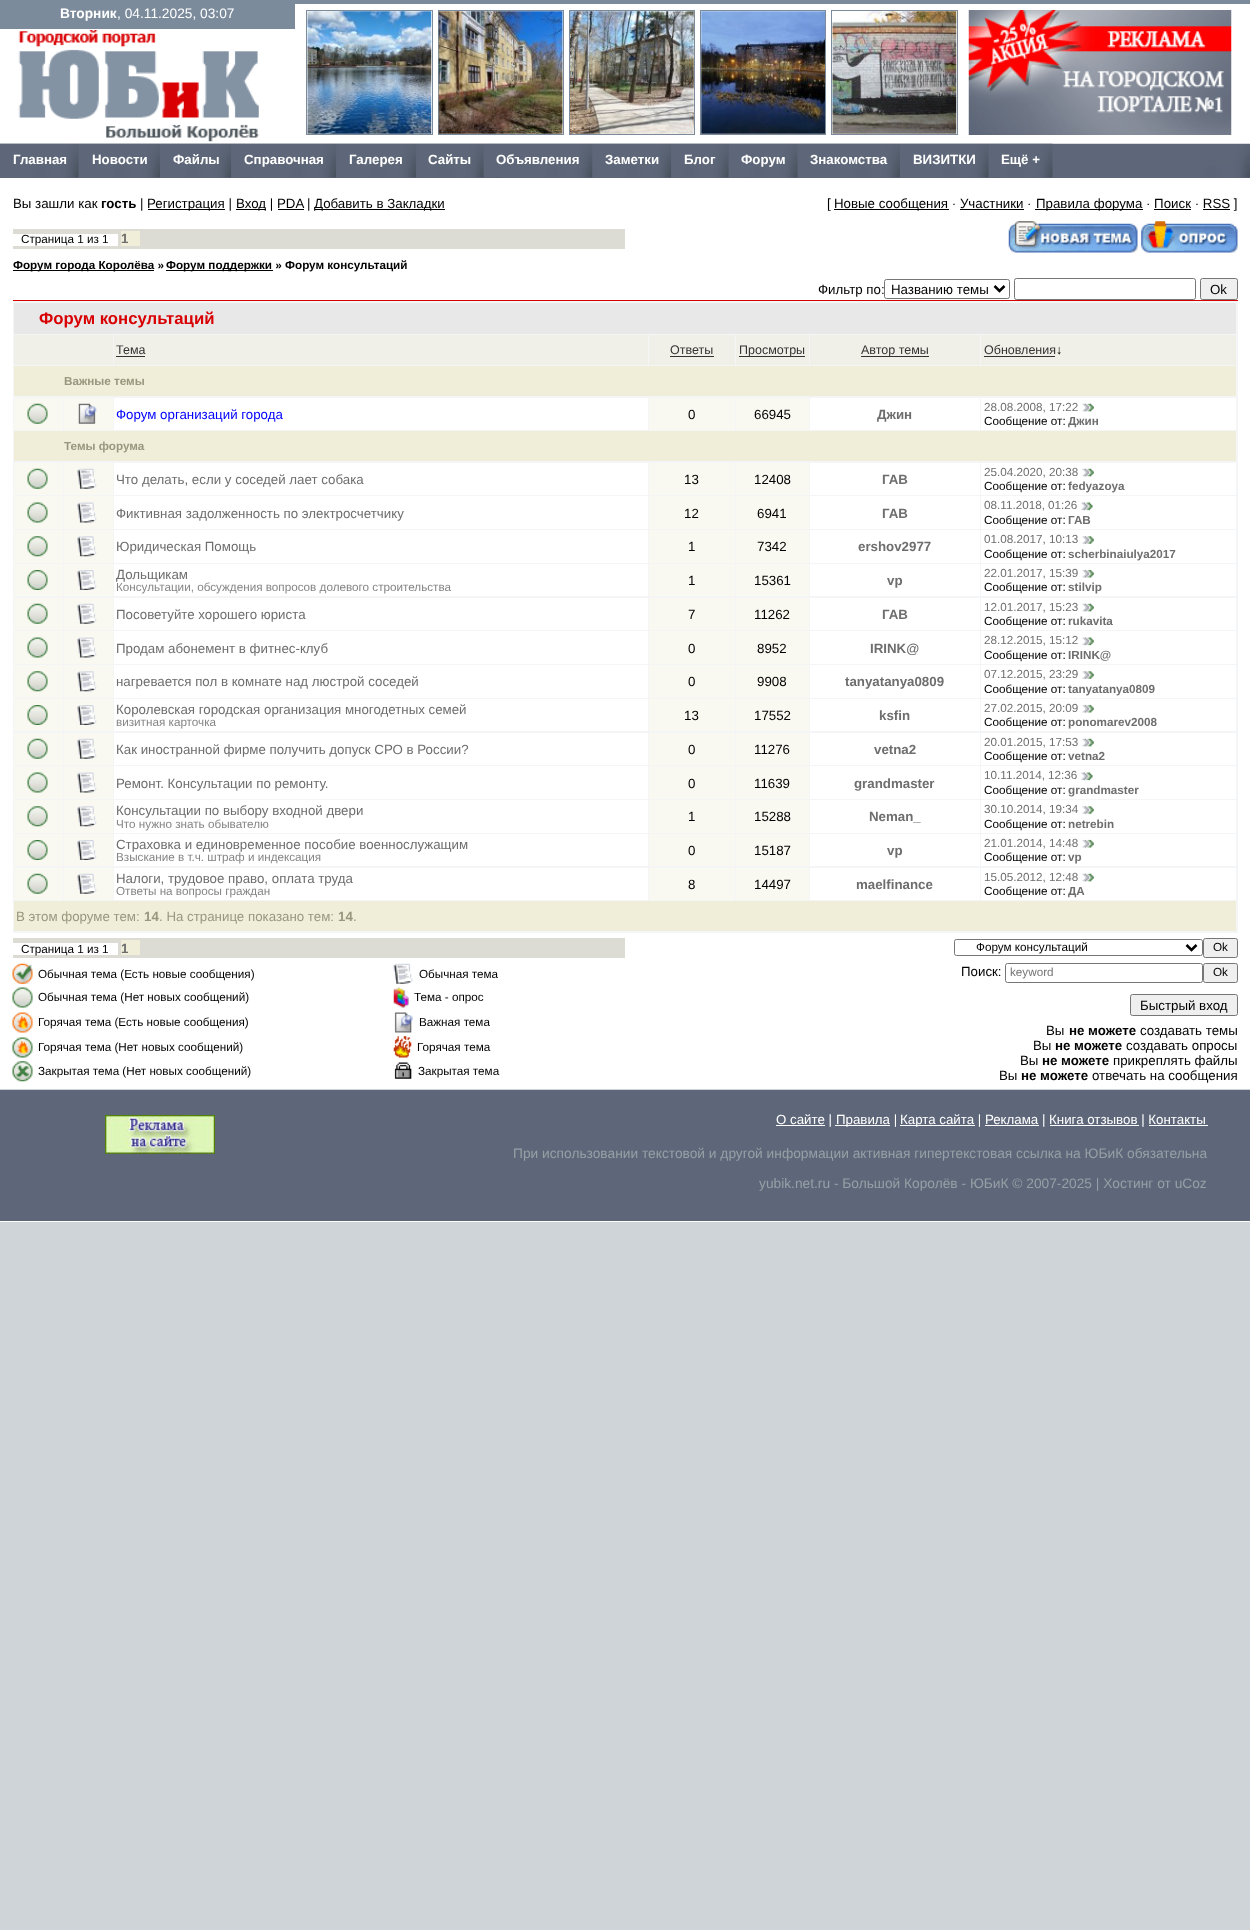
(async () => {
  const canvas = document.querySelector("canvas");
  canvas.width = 1250;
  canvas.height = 1930;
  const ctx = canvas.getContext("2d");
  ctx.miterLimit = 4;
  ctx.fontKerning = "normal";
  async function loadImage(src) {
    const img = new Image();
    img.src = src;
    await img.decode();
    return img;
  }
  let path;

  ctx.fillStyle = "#cfd4d8";
  ctx.fillRect(0, 0, 1250, 1930);
  for (const [x, y, w, h, color] of [
    [0, 4, 1250, 1218, "#ffffff"],
    [295, 0, 955, 4, "#7b8b9c"],
    [0, 0, 295, 29, "#7b8b9c"],
  ]) {
    ctx.fillStyle = color;
    ctx.fillRect(x, y, w, h);
  }
  ctx.strokeStyle = "#7b8b9c";
  ctx.strokeRect(306.5, 10.5, 126, 124);
  ctx.drawImage(await loadImage("img/1.png"), 307, 11, 125, 123);
  ctx.strokeRect(438.5, 10.5, 125, 124);
  ctx.drawImage(await loadImage("img/2.png"), 438, 11, 125, 123);
  ctx.strokeRect(569.5, 10.5, 125, 124);
  ctx.drawImage(await loadImage("img/3.png"), 570, 11, 124, 123);
  ctx.strokeRect(700.5, 10.5, 125, 124);
  ctx.drawImage(await loadImage("img/4.png"), 701, 11, 124, 123);
  ctx.strokeRect(831.5, 10.5, 126, 124);
  ctx.drawImage(await loadImage("img/5.png"), 832, 11, 125, 123);
  ctx.drawImage(await loadImage("img/6.png"), 968, 10, 264, 125);
  ctx.drawImage(await loadImage("img/7.png"), 18, 30, 241, 112);
  ctx.fillStyle = "#5e6779";
  ctx.fillRect(0, 177, 1250, 1);
  ctx.drawImage(await loadImage("img/8.png"), 0, 143, 1250, 35);
  ctx.drawImage(await loadImage("img/9.png"), 0, 143, 79, 35);
  ctx.drawImage(await loadImage("img/10.png"), 78, 143, 82, 35);
  ctx.drawImage(await loadImage("img/11.png"), 160, 143, 72, 35);
  ctx.drawImage(await loadImage("img/12.png"), 231, 143, 106, 35);
  ctx.drawImage(await loadImage("img/13.png"), 336, 143, 81, 35);
  ctx.drawImage(await loadImage("img/14.png"), 416, 143, 68, 35);
  ctx.drawImage(await loadImage("img/15.png"), 483, 143, 110, 35);
  ctx.drawImage(await loadImage("img/16.png"), 592, 143, 80, 35);
  ctx.drawImage(await loadImage("img/17.png"), 671, 143, 58, 35);
  ctx.drawImage(await loadImage("img/19.png"), 797, 143, 103, 35);
  ctx.drawImage(await loadImage("img/18.png"), 728, 143, 70, 35);
  ctx.drawImage(await loadImage("img/20.png"), 900, 143, 89, 35);
  ctx.drawImage(await loadImage("img/21.png"), 988, 143, 65, 35);
  for (const [x, y, w, h, color] of [
    [148, 209, 77, 1, "#000000"],
    [236, 209, 30, 1, "#000000"],
    [315, 209, 130, 1, "#000000"],
    [278, 209, 26, 1, "#000000"],
    [834, 209, 115, 1, "#000000"],
    [1035, 209, 108, 1, "#000000"],
    [960, 209, 64, 1, "#000000"],
    [1154, 209, 37, 1, "#000000"],
    [1203, 209, 27, 1, "#000000"],
    [13, 229, 612, 20, "#dcdbd4"],
    [13, 234, 105, 12, "#ffffff"],
    [121, 231, 19, 15, "#f0eed8"],
  ]) {
    ctx.fillStyle = color;
    ctx.fillRect(x, y, w, h);
  }
  ctx.drawImage(await loadImage("img/22.png"), 1008, 221, 130, 32);
  ctx.drawImage(await loadImage("img/23.png"), 1141, 221, 97, 32);
  ctx.fillStyle = "#000000";
  ctx.fillRect(13, 270, 141, 1);
  ctx.fillRect(166, 270, 107, 1);
  ctx.beginPath();
  ctx.roundRect(884.5, 279.5, 125, 19, 2);
  ctx.strokeStyle = "#767676";
  ctx.stroke();
  path = new Path2D("M994.5 286L999.5 291L1004.5 286");
  ctx.strokeStyle = "#000000";
  ctx.lineWidth = 2.5;
  ctx.stroke(path);
  ctx.beginPath();
  ctx.roundRect(1014.5, 278.5, 181, 21, 2);
  ctx.strokeStyle = "#767676";
  ctx.lineWidth = 1;
  ctx.stroke();
  ctx.fillStyle = "#efefef";
  ctx.beginPath();
  ctx.roundRect(1200.5, 278.5, 37, 21, 2);
  ctx.fill();
  ctx.stroke();
  for (const [x, y, w, h, color] of [
    [13, 301, 1225, 632, "#f4f5f6"],
    [13, 300, 1225, 1, "#d70003"],
    [14, 303, 1222, 31, "#e8e8e8"],
    [14, 335, 99, 30, "#f1f0e8"],
    [114, 335, 534, 30, "#f1f0e8"],
    [116, 356, 29, 1, "#333333"],
    [649, 335, 86, 30, "#f1f0e8"],
    [670, 356, 44, 1, "#333333"],
    [736, 335, 73, 30, "#f1f0e8"],
    [739, 356, 66, 1, "#333333"],
    [810, 335, 170, 30, "#f1f0e8"],
    [861, 356, 68, 1, "#333333"],
    [981, 335, 255, 30, "#f1f0e8"],
    [984, 356, 71, 1, "#333333"],
    [14, 366, 1222, 30, "#f0eed8"],
    [14, 398, 49, 32, "#faf9f1"],
  ]) {
    ctx.fillStyle = color;
    ctx.fillRect(x, y, w, h);
  }
  ctx.drawImage(await loadImage("img/24.png"), 27, 403, 21, 21);
  ctx.fillRect(64, 398, 49, 32);
  ctx.drawImage(await loadImage("img/25.png"), 78, 403, 19, 21);
  for (const [x, y, w, h, color] of [
    [114, 398, 534, 32, "#ffffff"],
    [649, 398, 86, 32, "#faf9f1"],
    [736, 398, 73, 32, "#faf9f1"],
    [810, 398, 170, 32, "#ffffff"],
    [981, 398, 255, 32, "#ffffff"],
  ]) {
    ctx.fillStyle = color;
    ctx.fillRect(x, y, w, h);
  }
  ctx.drawImage(await loadImage("img/26.png"), 1082, 403, 12, 9);
  ctx.fillStyle = "#f0eed8";
  ctx.fillRect(14, 431, 1222, 30);
  ctx.fillStyle = "#faf9f1";
  ctx.fillRect(14, 463, 49, 32);
  ctx.drawImage(await loadImage("img/24.png"), 27, 468, 21, 21);
  ctx.fillRect(64, 463, 49, 32);
  ctx.drawImage(await loadImage("img/27.png"), 77, 468, 20, 21);
  for (const [x, y, w, h, color] of [
    [114, 463, 534, 32, "#ffffff"],
    [649, 463, 86, 32, "#faf9f1"],
    [736, 463, 73, 32, "#faf9f1"],
    [810, 463, 170, 32, "#ffffff"],
    [981, 463, 255, 32, "#ffffff"],
  ]) {
    ctx.fillStyle = color;
    ctx.fillRect(x, y, w, h);
  }
  ctx.drawImage(await loadImage("img/26.png"), 1082, 468, 12, 9);
  ctx.fillStyle = "#faf9f1";
  ctx.fillRect(14, 496, 49, 33);
  ctx.drawImage(await loadImage("img/28.png"), 27, 502, 21, 21);
  ctx.fillRect(64, 496, 49, 33);
  ctx.drawImage(await loadImage("img/29.png"), 77, 502, 20, 21);
  for (const [x, y, w, h, color] of [
    [114, 496, 534, 33, "#ffffff"],
    [649, 496, 86, 33, "#faf9f1"],
    [736, 496, 73, 33, "#faf9f1"],
    [810, 496, 170, 33, "#ffffff"],
    [981, 496, 255, 33, "#ffffff"],
  ]) {
    ctx.fillStyle = color;
    ctx.fillRect(x, y, w, h);
  }
  ctx.drawImage(await loadImage("img/30.png"), 1081, 502, 12, 9);
  ctx.fillStyle = "#faf9f1";
  ctx.fillRect(14, 530, 49, 33);
  ctx.drawImage(await loadImage("img/31.png"), 27, 536, 21, 21);
  ctx.fillRect(64, 530, 49, 33);
  ctx.drawImage(await loadImage("img/32.png"), 77, 536, 20, 21);
  for (const [x, y, w, h, color] of [
    [114, 530, 534, 33, "#ffffff"],
    [649, 530, 86, 33, "#faf9f1"],
    [736, 530, 73, 33, "#faf9f1"],
    [810, 530, 170, 33, "#ffffff"],
    [981, 530, 255, 33, "#ffffff"],
  ]) {
    ctx.fillStyle = color;
    ctx.fillRect(x, y, w, h);
  }
  ctx.drawImage(await loadImage("img/33.png"), 1082, 536, 12, 8);
  ctx.fillStyle = "#faf9f1";
  ctx.fillRect(14, 564, 49, 32);
  ctx.drawImage(await loadImage("img/34.png"), 27, 570, 21, 20);
  ctx.fillRect(64, 564, 49, 32);
  ctx.drawImage(await loadImage("img/35.png"), 77, 570, 20, 20);
  for (const [x, y, w, h, color] of [
    [114, 564, 534, 32, "#ffffff"],
    [649, 564, 86, 32, "#faf9f1"],
    [736, 564, 73, 32, "#faf9f1"],
    [810, 564, 170, 32, "#ffffff"],
    [981, 564, 255, 32, "#ffffff"],
  ]) {
    ctx.fillStyle = color;
    ctx.fillRect(x, y, w, h);
  }
  ctx.drawImage(await loadImage("img/36.png"), 1082, 569, 12, 9);
  ctx.fillStyle = "#faf9f1";
  ctx.fillRect(14, 598, 49, 32);
  ctx.drawImage(await loadImage("img/24.png"), 27, 603, 21, 21);
  ctx.fillRect(64, 598, 49, 32);
  ctx.drawImage(await loadImage("img/27.png"), 77, 603, 20, 21);
  for (const [x, y, w, h, color] of [
    [114, 598, 534, 32, "#ffffff"],
    [649, 598, 86, 32, "#faf9f1"],
    [736, 598, 73, 32, "#faf9f1"],
    [810, 598, 170, 32, "#ffffff"],
    [981, 598, 255, 32, "#ffffff"],
  ]) {
    ctx.fillStyle = color;
    ctx.fillRect(x, y, w, h);
  }
  ctx.drawImage(await loadImage("img/26.png"), 1082, 603, 12, 9);
  ctx.fillStyle = "#faf9f1";
  ctx.fillRect(14, 631, 49, 33);
  ctx.drawImage(await loadImage("img/28.png"), 27, 637, 21, 21);
  ctx.fillRect(64, 631, 49, 33);
  ctx.drawImage(await loadImage("img/29.png"), 77, 637, 20, 21);
  for (const [x, y, w, h, color] of [
    [114, 631, 534, 33, "#ffffff"],
    [649, 631, 86, 33, "#faf9f1"],
    [736, 631, 73, 33, "#faf9f1"],
    [810, 631, 170, 33, "#ffffff"],
    [981, 631, 255, 33, "#ffffff"],
  ]) {
    ctx.fillStyle = color;
    ctx.fillRect(x, y, w, h);
  }
  ctx.drawImage(await loadImage("img/37.png"), 1082, 637, 12, 9);
  ctx.fillStyle = "#faf9f1";
  ctx.fillRect(14, 665, 49, 33);
  ctx.drawImage(await loadImage("img/31.png"), 27, 671, 21, 21);
  ctx.fillRect(64, 665, 49, 33);
  ctx.drawImage(await loadImage("img/32.png"), 77, 671, 20, 21);
  for (const [x, y, w, h, color] of [
    [114, 665, 534, 33, "#ffffff"],
    [649, 665, 86, 33, "#faf9f1"],
    [736, 665, 73, 33, "#faf9f1"],
    [810, 665, 170, 33, "#ffffff"],
    [981, 665, 255, 33, "#ffffff"],
  ]) {
    ctx.fillStyle = color;
    ctx.fillRect(x, y, w, h);
  }
  ctx.drawImage(await loadImage("img/33.png"), 1082, 671, 12, 8);
  ctx.fillStyle = "#faf9f1";
  ctx.fillRect(14, 699, 49, 32);
  ctx.drawImage(await loadImage("img/34.png"), 27, 705, 21, 20);
  ctx.fillRect(64, 699, 49, 32);
  ctx.drawImage(await loadImage("img/35.png"), 77, 705, 20, 20);
  for (const [x, y, w, h, color] of [
    [114, 699, 534, 32, "#ffffff"],
    [649, 699, 86, 32, "#faf9f1"],
    [736, 699, 73, 32, "#faf9f1"],
    [810, 699, 170, 32, "#ffffff"],
    [981, 699, 255, 32, "#ffffff"],
  ]) {
    ctx.fillStyle = color;
    ctx.fillRect(x, y, w, h);
  }
  ctx.drawImage(await loadImage("img/36.png"), 1082, 704, 12, 9);
  ctx.fillStyle = "#faf9f1";
  ctx.fillRect(14, 733, 49, 32);
  ctx.drawImage(await loadImage("img/24.png"), 27, 738, 21, 21);
  ctx.fillRect(64, 733, 49, 32);
  ctx.drawImage(await loadImage("img/27.png"), 77, 738, 20, 21);
  for (const [x, y, w, h, color] of [
    [114, 733, 534, 32, "#ffffff"],
    [649, 733, 86, 32, "#faf9f1"],
    [736, 733, 73, 32, "#faf9f1"],
    [810, 733, 170, 32, "#ffffff"],
    [981, 733, 255, 32, "#ffffff"],
  ]) {
    ctx.fillStyle = color;
    ctx.fillRect(x, y, w, h);
  }
  ctx.drawImage(await loadImage("img/26.png"), 1082, 738, 12, 9);
  ctx.fillStyle = "#faf9f1";
  ctx.fillRect(14, 766, 49, 33);
  ctx.drawImage(await loadImage("img/38.png"), 27, 772, 21, 21);
  ctx.fillRect(64, 766, 49, 33);
  ctx.drawImage(await loadImage("img/39.png"), 77, 772, 20, 21);
  for (const [x, y, w, h, color] of [
    [114, 766, 534, 33, "#ffffff"],
    [649, 766, 86, 33, "#faf9f1"],
    [736, 766, 73, 33, "#faf9f1"],
    [810, 766, 170, 33, "#ffffff"],
    [981, 766, 255, 33, "#ffffff"],
  ]) {
    ctx.fillStyle = color;
    ctx.fillRect(x, y, w, h);
  }
  ctx.drawImage(await loadImage("img/30.png"), 1081, 772, 12, 9);
  ctx.fillStyle = "#faf9f1";
  ctx.fillRect(14, 800, 49, 33);
  ctx.drawImage(await loadImage("img/31.png"), 27, 806, 21, 21);
  ctx.fillRect(64, 800, 49, 33);
  ctx.drawImage(await loadImage("img/32.png"), 77, 806, 20, 21);
  for (const [x, y, w, h, color] of [
    [114, 800, 534, 33, "#ffffff"],
    [649, 800, 86, 33, "#faf9f1"],
    [736, 800, 73, 33, "#faf9f1"],
    [810, 800, 170, 33, "#ffffff"],
    [981, 800, 255, 33, "#ffffff"],
  ]) {
    ctx.fillStyle = color;
    ctx.fillRect(x, y, w, h);
  }
  ctx.drawImage(await loadImage("img/33.png"), 1082, 806, 12, 8);
  ctx.fillStyle = "#faf9f1";
  ctx.fillRect(14, 834, 49, 32);
  ctx.drawImage(await loadImage("img/34.png"), 27, 840, 21, 20);
  ctx.fillRect(64, 834, 49, 32);
  ctx.drawImage(await loadImage("img/35.png"), 77, 840, 20, 20);
  for (const [x, y, w, h, color] of [
    [114, 834, 534, 32, "#ffffff"],
    [649, 834, 86, 32, "#faf9f1"],
    [736, 834, 73, 32, "#faf9f1"],
    [810, 834, 170, 32, "#ffffff"],
    [981, 834, 255, 32, "#ffffff"],
  ]) {
    ctx.fillStyle = color;
    ctx.fillRect(x, y, w, h);
  }
  ctx.drawImage(await loadImage("img/36.png"), 1082, 839, 12, 9);
  ctx.fillStyle = "#faf9f1";
  ctx.fillRect(14, 868, 49, 32);
  ctx.drawImage(await loadImage("img/24.png"), 27, 873, 21, 21);
  ctx.fillRect(64, 868, 49, 32);
  ctx.drawImage(await loadImage("img/27.png"), 77, 873, 20, 21);
  for (const [x, y, w, h, color] of [
    [114, 868, 534, 32, "#ffffff"],
    [649, 868, 86, 32, "#faf9f1"],
    [736, 868, 73, 32, "#faf9f1"],
    [810, 868, 170, 32, "#ffffff"],
    [981, 868, 255, 32, "#ffffff"],
  ]) {
    ctx.fillStyle = color;
    ctx.fillRect(x, y, w, h);
  }
  ctx.drawImage(await loadImage("img/26.png"), 1082, 873, 12, 9);
  for (const [x, y, w, h, color] of [
    [14, 901, 1222, 30, "#f0eed8"],
    [13, 938, 612, 20, "#dcdbd4"],
    [13, 943, 105, 12, "#ffffff"],
    [121, 940, 19, 15, "#f0eed8"],
  ]) {
    ctx.fillStyle = color;
    ctx.fillRect(x, y, w, h);
  }
  ctx.beginPath();
  ctx.roundRect(954.5, 939.5, 248, 16, 2);
  ctx.stroke();
  path = new Path2D("M1186.5 945L1191.5 950L1196.5 945");
  ctx.strokeStyle = "#000000";
  ctx.lineWidth = 2.5;
  ctx.stroke(path);
  ctx.fillStyle = "#efefef";
  ctx.beginPath();
  ctx.roundRect(1203.5, 938.5, 34, 19, 2);
  ctx.fill();
  ctx.strokeStyle = "#767676";
  ctx.lineWidth = 1;
  ctx.stroke();
  ctx.drawImage(await loadImage("img/40.png"), 12, 963, 21, 21);
  ctx.drawImage(await loadImage("img/41.png"), 393, 963, 20, 21);
  ctx.drawImage(await loadImage("img/42.png"), 12, 987, 21, 21);
  ctx.drawImage(await loadImage("img/43.png"), 393, 987, 16, 21);
  ctx.drawImage(await loadImage("img/44.png"), 12, 1012, 21, 21);
  ctx.drawImage(await loadImage("img/45.png"), 394, 1012, 19, 21);
  ctx.drawImage(await loadImage("img/46.png"), 12, 1037, 21, 21);
  ctx.drawImage(await loadImage("img/47.png"), 393, 1036, 19, 22);
  ctx.drawImage(await loadImage("img/48.png"), 12, 1061, 21, 21);
  ctx.drawImage(await loadImage("img/49.png"), 394, 1062, 18, 17);
  ctx.beginPath();
  ctx.roundRect(1005.5, 963.5, 197, 19, 2);
  ctx.stroke();
  ctx.beginPath();
  ctx.roundRect(1203.5, 963.5, 34, 19, 2);
  ctx.fill();
  ctx.stroke();
  ctx.beginPath();
  ctx.roundRect(1130.5, 994.5, 107, 21, 2);
  ctx.fill();
  ctx.stroke();
  ctx.fillStyle = "#5e6779";
  ctx.fillRect(0, 1090, 1250, 131);
  ctx.fillStyle = "#cfd4d8";
  ctx.fillRect(0, 1089, 1250, 1);
  ctx.drawImage(await loadImage("img/50.png"), 105, 1115, 110, 39);
  for (const [x, y, w, h, color] of [
    [776, 1125, 49, 1, "#ffffff"],
    [835, 1125, 55, 1, "#ffffff"],
    [900, 1125, 75, 1, "#ffffff"],
    [985, 1125, 54, 1, "#ffffff"],
    [1050, 1125, 89, 1, "#ffffff"],
    [1149, 1125, 59, 1, "#ffffff"],
  ]) {
    ctx.fillStyle = color;
    ctx.fillRect(x, y, w, h);
  }
  ctx.font = "bold 13.75px Liberation Sans";
  ctx.fillText("Вторник", 60, 18);
  ctx.font = "13.75px Liberation Sans";
  ctx.fillText(", 04.11.2025, 03:07", 117, 18);
  ctx.font = "bold 13.3px Liberation Sans";
  for (const [text, x, y] of [
    ["Главная", 13, 164],
    ["Новости", 92, 164],
    ["Файлы", 173, 164],
    ["Справочная", 244, 164],
    ["Галерея", 349, 164],
    ["Сайты", 428, 164],
    ["Объявления", 496, 164],
    ["Заметки", 605, 164],
    ["Блог", 684, 164],
    ["Форум", 741, 164],
    ["Знакомства", 810, 164],
    ["ВИЗИТКИ", 913, 164],
    ["Ещё +", 1001, 164],
  ]) {
    ctx.fillText(text, x, y);
  }
  ctx.font = "13.3px Liberation Sans";
  ctx.fillStyle = "#000000";
  ctx.fillText("Вы зашли как", 13, 208);
  ctx.font = "bold 13.3px Liberation Sans";
  ctx.fillText("гость", 101, 208);
  ctx.font = "13.3px Liberation Sans";
  for (const [text, x, y] of [
    ["|", 140, 208],
    ["Регистрация |", 147, 208],
    ["Вход | PDA", 236, 208],
    ["|", 307, 208],
    ["Добавить в Закладки", 314, 208],
    ["[", 827, 208],
    ["Новые сообщения · Участники ·", 834, 208],
    ["Правила форума · Поиск · RSS ]", 1036, 208],
  ]) {
    ctx.fillText(text, x, y);
  }
  ctx.font = "11.7px Liberation Sans";
  ctx.fillText("Страница 1 из 1", 21, 243);
  ctx.font = "bold 13.3px Liberation Sans";
  ctx.fillStyle = "#6e6e6e";
  ctx.fillText("1", 121, 243);
  ctx.font = "bold 11.7px Liberation Sans";
  ctx.fillStyle = "#000000";
  ctx.fillText("Форум города Королёва »", 13, 269);
  ctx.fillText("Форум поддержки » Форум консультаций", 166, 269);
  ctx.font = "13.3px Liberation Sans";
  for (const [text, x, y] of [
    ["Фильтр по:", 818, 294],
    ["Названию темы", 891, 294],
    ["Ok", 1210, 294],
  ]) {
    ctx.fillText(text, x, y);
  }
  ctx.font = "bold 16.75px Liberation Sans";
  ctx.fillStyle = "#d80003";
  ctx.fillText("Форум консультаций", 39, 324);
  ctx.font = "12.5px Liberation Sans";
  ctx.fillStyle = "#333333";
  for (const [text, x, y] of [
    ["Тема", 116, 354],
    ["Ответы", 670, 354],
    ["Просмотры", 739, 354],
    ["Автор темы", 861, 354],
    ["Обновления", 984, 354],
  ]) {
    ctx.fillText(text, x, y);
  }
  ctx.fillStyle = "#000000";
  ctx.fillText("↓", 1056, 354);
  ctx.font = "bold 11.7px Liberation Sans";
  ctx.fillStyle = "#99977f";
  ctx.fillText("Важные темы", 64, 385);
  ctx.font = "13.3px Liberation Sans";
  ctx.fillStyle = "#0000ff";
  ctx.fillText("Форум организаций города", 116, 419);
  ctx.fillStyle = "#000000";
  ctx.fillText("0", 688, 419);
  ctx.fillText("66945", 754, 419);
  ctx.font = "bold 13.3px Liberation Sans";
  ctx.fillStyle = "#6e6e6e";
  ctx.fillText("Джин", 877, 419);
  ctx.font = "11.7px Liberation Sans";
  ctx.fillText("28.08.2008, 17:22", 984, 411);
  ctx.fillStyle = "#000000";
  ctx.fillText("Сообщение от:", 984, 425);
  ctx.font = "bold 11.7px Liberation Sans";
  ctx.fillStyle = "#6e6e6e";
  ctx.fillText("Джин", 1068, 425);
  ctx.fillStyle = "#99977f";
  ctx.fillText("Темы форума", 64, 450);
  ctx.font = "13.3px Liberation Sans";
  ctx.fillStyle = "#6e6e6e";
  ctx.fillText("Что делать, если у соседей лает собака", 116, 484);
  ctx.fillStyle = "#000000";
  ctx.fillText("13", 684, 484);
  ctx.fillText("12408", 754, 484);
  ctx.font = "bold 13.3px Liberation Sans";
  ctx.fillStyle = "#6e6e6e";
  ctx.fillText("ГАВ", 882, 484);
  ctx.font = "11.7px Liberation Sans";
  ctx.fillText("25.04.2020, 20:38", 984, 476);
  ctx.fillStyle = "#000000";
  ctx.fillText("Сообщение от:", 984, 490);
  ctx.font = "bold 11.7px Liberation Sans";
  ctx.fillStyle = "#6e6e6e";
  ctx.fillText("fedyazoya", 1068, 490);
  ctx.font = "13.3px Liberation Sans";
  ctx.fillText("Фиктивная задолженность по электросчетчику", 116, 518);
  ctx.fillStyle = "#000000";
  ctx.fillText("12", 684, 518);
  ctx.fillText("6941", 757, 518);
  ctx.font = "bold 13.3px Liberation Sans";
  ctx.fillStyle = "#6e6e6e";
  ctx.fillText("ГАВ", 882, 518);
  ctx.font = "11.7px Liberation Sans";
  ctx.fillText("08.11.2018, 01:26", 984, 509);
  ctx.fillStyle = "#000000";
  ctx.fillText("Сообщение от:", 984, 524);
  ctx.font = "bold 11.7px Liberation Sans";
  ctx.fillStyle = "#6e6e6e";
  ctx.fillText("ГАВ", 1068, 524);
  ctx.font = "13.3px Liberation Sans";
  ctx.fillText("Юридическая Помощь", 116, 551);
  ctx.fillStyle = "#000000";
  ctx.fillText("1", 688, 551);
  ctx.fillText("7342", 757, 551);
  ctx.font = "bold 13.3px Liberation Sans";
  ctx.fillStyle = "#6e6e6e";
  ctx.fillText("ershov2977", 858, 551);
  ctx.font = "11.7px Liberation Sans";
  ctx.fillText("01.08.2017, 10:13", 984, 543);
  ctx.fillStyle = "#000000";
  ctx.fillText("Сообщение от:", 984, 558);
  ctx.font = "bold 11.7px Liberation Sans";
  ctx.fillStyle = "#6e6e6e";
  ctx.fillText("scherbinaiulya2017", 1068, 558);
  ctx.font = "13.3px Liberation Sans";
  ctx.fillText("Дольщикам", 116, 579);
  ctx.font = "11.7px Liberation Sans";
  ctx.fillStyle = "#858585";
  ctx.fillText("Консультации, обсуждения вопросов долевого строительства", 116, 591);
  ctx.font = "13.3px Liberation Sans";
  ctx.fillStyle = "#000000";
  ctx.fillText("1", 688, 585);
  ctx.fillText("15361", 754, 585);
  ctx.font = "bold 13.3px Liberation Sans";
  ctx.fillStyle = "#6e6e6e";
  ctx.fillText("vp", 887, 585);
  ctx.font = "11.7px Liberation Sans";
  ctx.fillText("22.01.2017, 15:39", 984, 577);
  ctx.fillStyle = "#000000";
  ctx.fillText("Сообщение от:", 984, 591);
  ctx.font = "bold 11.7px Liberation Sans";
  ctx.fillStyle = "#6e6e6e";
  ctx.fillText("stilvip", 1068, 591);
  ctx.font = "13.3px Liberation Sans";
  ctx.fillText("Посоветуйте хорошего юриста", 116, 619);
  ctx.fillStyle = "#000000";
  ctx.fillText("7", 688, 619);
  ctx.fillText("11262", 754, 619);
  ctx.font = "bold 13.3px Liberation Sans";
  ctx.fillStyle = "#6e6e6e";
  ctx.fillText("ГАВ", 882, 619);
  ctx.font = "11.7px Liberation Sans";
  ctx.fillText("12.01.2017, 15:23", 984, 611);
  ctx.fillStyle = "#000000";
  ctx.fillText("Сообщение от:", 984, 625);
  ctx.font = "bold 11.7px Liberation Sans";
  ctx.fillStyle = "#6e6e6e";
  ctx.fillText("rukavita", 1068, 625);
  ctx.font = "13.3px Liberation Sans";
  ctx.fillText("Продам абонемент в фитнес-клуб", 116, 653);
  ctx.fillStyle = "#000000";
  ctx.fillText("0", 688, 653);
  ctx.fillText("8952", 757, 653);
  ctx.font = "bold 13.3px Liberation Sans";
  ctx.fillStyle = "#6e6e6e";
  ctx.fillText("IRINK@", 870, 653);
  ctx.font = "11.7px Liberation Sans";
  ctx.fillText("28.12.2015, 15:12", 984, 644);
  ctx.fillStyle = "#000000";
  ctx.fillText("Сообщение от:", 984, 659);
  ctx.font = "bold 11.7px Liberation Sans";
  ctx.fillStyle = "#6e6e6e";
  ctx.fillText("IRINK@", 1068, 659);
  ctx.font = "13.3px Liberation Sans";
  ctx.fillText("нагревается пол в комнате над люстрой соседей", 116, 686);
  ctx.fillStyle = "#000000";
  ctx.fillText("0", 688, 686);
  ctx.fillText("9908", 757, 686);
  ctx.font = "bold 13.3px Liberation Sans";
  ctx.fillStyle = "#6e6e6e";
  ctx.fillText("tanyatanya0809", 845, 686);
  ctx.font = "11.7px Liberation Sans";
  ctx.fillText("07.12.2015, 23:29", 984, 678);
  ctx.fillStyle = "#000000";
  ctx.fillText("Сообщение от:", 984, 693);
  ctx.font = "bold 11.7px Liberation Sans";
  ctx.fillStyle = "#6e6e6e";
  ctx.fillText("tanyatanya0809", 1068, 693);
  ctx.font = "13.3px Liberation Sans";
  ctx.fillText("Королевская городская организация многодетных семей", 116, 714);
  ctx.font = "11.7px Liberation Sans";
  ctx.fillStyle = "#858585";
  ctx.fillText("визитная карточка", 116, 726);
  ctx.font = "13.3px Liberation Sans";
  ctx.fillStyle = "#000000";
  ctx.fillText("13", 684, 720);
  ctx.fillText("17552", 754, 720);
  ctx.font = "bold 13.3px Liberation Sans";
  ctx.fillStyle = "#6e6e6e";
  ctx.fillText("ksfin", 879, 720);
  ctx.font = "11.7px Liberation Sans";
  ctx.fillText("27.02.2015, 20:09", 984, 712);
  ctx.fillStyle = "#000000";
  ctx.fillText("Сообщение от:", 984, 726);
  ctx.font = "bold 11.7px Liberation Sans";
  ctx.fillStyle = "#6e6e6e";
  ctx.fillText("ponomarev2008", 1068, 726);
  ctx.font = "13.3px Liberation Sans";
  ctx.fillText("Как иностранной фирме получить допуск СРО в России?", 116, 754);
  ctx.fillStyle = "#000000";
  ctx.fillText("0", 688, 754);
  ctx.fillText("11276", 754, 754);
  ctx.font = "bold 13.3px Liberation Sans";
  ctx.fillStyle = "#6e6e6e";
  ctx.fillText("vetna2", 874, 754);
  ctx.font = "11.7px Liberation Sans";
  ctx.fillText("20.01.2015, 17:53", 984, 746);
  ctx.fillStyle = "#000000";
  ctx.fillText("Сообщение от:", 984, 760);
  ctx.font = "bold 11.7px Liberation Sans";
  ctx.fillStyle = "#6e6e6e";
  ctx.fillText("vetna2", 1068, 760);
  ctx.font = "13.3px Liberation Sans";
  ctx.fillText("Ремонт. Консультации по ремонту.", 116, 788);
  ctx.fillStyle = "#000000";
  ctx.fillText("0", 688, 788);
  ctx.fillText("11639", 754, 788);
  ctx.font = "bold 13.3px Liberation Sans";
  ctx.fillStyle = "#6e6e6e";
  ctx.fillText("grandmaster", 854, 788);
  ctx.font = "11.7px Liberation Sans";
  ctx.fillText("10.11.2014, 12:36", 984, 779);
  ctx.fillStyle = "#000000";
  ctx.fillText("Сообщение от:", 984, 794);
  ctx.font = "bold 11.7px Liberation Sans";
  ctx.fillStyle = "#6e6e6e";
  ctx.fillText("grandmaster", 1068, 794);
  ctx.font = "13.3px Liberation Sans";
  ctx.fillText("Консультации по выбору входной двери", 116, 815);
  ctx.font = "11.7px Liberation Sans";
  ctx.fillStyle = "#858585";
  ctx.fillText("Что нужно знать обывателю", 116, 828);
  ctx.font = "13.3px Liberation Sans";
  ctx.fillStyle = "#000000";
  ctx.fillText("1", 688, 821);
  ctx.fillText("15288", 754, 821);
  ctx.font = "bold 13.3px Liberation Sans";
  ctx.fillStyle = "#6e6e6e";
  ctx.fillText("Neman_", 869, 821);
  ctx.font = "11.7px Liberation Sans";
  ctx.fillText("30.10.2014, 19:34", 984, 813);
  ctx.fillStyle = "#000000";
  ctx.fillText("Сообщение от:", 984, 828);
  ctx.font = "bold 11.7px Liberation Sans";
  ctx.fillStyle = "#6e6e6e";
  ctx.fillText("netrebin", 1068, 828);
  ctx.font = "13.3px Liberation Sans";
  ctx.fillText("Страховка и единовременное пособие военнослужащим", 116, 849);
  ctx.font = "11.7px Liberation Sans";
  ctx.fillStyle = "#858585";
  ctx.fillText("Взыскание в т.ч. штраф и индексация", 116, 861);
  ctx.font = "13.3px Liberation Sans";
  ctx.fillStyle = "#000000";
  ctx.fillText("0", 688, 855);
  ctx.fillText("15187", 754, 855);
  ctx.font = "bold 13.3px Liberation Sans";
  ctx.fillStyle = "#6e6e6e";
  ctx.fillText("vp", 887, 855);
  ctx.font = "11.7px Liberation Sans";
  ctx.fillText("21.01.2014, 14:48", 984, 847);
  ctx.fillStyle = "#000000";
  ctx.fillText("Сообщение от:", 984, 861);
  ctx.font = "bold 11.7px Liberation Sans";
  ctx.fillStyle = "#6e6e6e";
  ctx.fillText("vp", 1068, 861);
  ctx.font = "13.3px Liberation Sans";
  ctx.fillText("Налоги, трудовое право, оплата труда", 116, 883);
  ctx.font = "11.7px Liberation Sans";
  ctx.fillStyle = "#858585";
  ctx.fillText("Ответы на вопросы граждан", 116, 895);
  ctx.font = "13.3px Liberation Sans";
  ctx.fillStyle = "#000000";
  ctx.fillText("8", 688, 889);
  ctx.fillText("14497", 754, 889);
  ctx.font = "bold 13.3px Liberation Sans";
  ctx.fillStyle = "#6e6e6e";
  ctx.fillText("maelfinance", 856, 889);
  ctx.font = "11.7px Liberation Sans";
  ctx.fillText("15.05.2012, 12:48", 984, 881);
  ctx.fillStyle = "#000000";
  ctx.fillText("Сообщение от:", 984, 895);
  ctx.font = "bold 11.7px Liberation Sans";
  ctx.fillStyle = "#6e6e6e";
  ctx.fillText("ДА", 1068, 895);
  ctx.font = "13.3px Liberation Sans";
  ctx.fillStyle = "#99977f";
  ctx.fillText("В этом форуме тем:", 16, 921);
  ctx.font = "bold 13.3px Liberation Sans";
  ctx.fillText("14", 144, 921);
  ctx.font = "13.3px Liberation Sans";
  ctx.fillText(". На странице показано тем:", 159, 921);
  ctx.font = "bold 13.3px Liberation Sans";
  ctx.fillText("14", 338, 921);
  ctx.font = "13.3px Liberation Sans";
  ctx.fillText(".", 353, 921);
  ctx.font = "11.7px Liberation Sans";
  ctx.fillStyle = "#000000";
  ctx.fillText("Страница 1 из 1", 21, 953);
  ctx.font = "bold 13.3px Liberation Sans";
  ctx.fillStyle = "#6e6e6e";
  ctx.fillText("1", 121, 953);
  ctx.font = "11.7px Liberation Sans";
  ctx.fillStyle = "#000000";
  for (const [text, x, y] of [
    ["Форум консультаций", 976, 951],
    ["Ok", 1213, 951],
    ["Обычная тема (Есть новые сообщения)", 38, 978],
    ["Обычная тема", 419, 978],
    ["Обычная тема (Нет новых сообщений)", 38, 1001],
    ["Тема - опрос", 414, 1001],
    ["Горячая тема (Есть новые сообщения)", 38, 1026],
    ["Важная тема", 419, 1026],
    ["Горячая тема (Нет новых сообщений)", 38, 1051],
    ["Горячая тема", 417, 1051],
    ["Закрытая тема (Нет новых сообщений)", 38, 1075],
    ["Закрытая тема", 418, 1075],
  ]) {
    ctx.fillText(text, x, y);
  }
  ctx.font = "13.3px Liberation Sans";
  ctx.fillText("Поиск:", 961, 976);
  ctx.font = "11.7px Liberation Sans";
  ctx.fillStyle = "#757575";
  ctx.fillText("keyword", 1010, 976);
  ctx.fillStyle = "#000000";
  ctx.fillText("Ok", 1213, 976);
  ctx.font = "13.3px Liberation Sans";
  ctx.fillText("Быстрый вход", 1140, 1010);
  ctx.fillText("Вы", 1046, 1035);
  ctx.font = "bold 13.3px Liberation Sans";
  ctx.fillText("не можете", 1069, 1035);
  ctx.font = "13.3px Liberation Sans";
  ctx.fillText("создавать темы", 1140, 1035);
  ctx.fillText("Вы", 1033, 1050);
  ctx.font = "bold 13.3px Liberation Sans";
  ctx.fillText("не можете", 1055, 1050);
  ctx.font = "13.3px Liberation Sans";
  ctx.fillText("создавать опросы", 1126, 1050);
  ctx.fillText("Вы", 1020, 1065);
  ctx.font = "bold 13.3px Liberation Sans";
  ctx.fillText("не можете", 1042, 1065);
  ctx.font = "13.3px Liberation Sans";
  ctx.fillText("прикреплять файлы", 1113, 1065);
  ctx.fillText("Вы", 999, 1080);
  ctx.font = "bold 13.3px Liberation Sans";
  ctx.fillText("не можете", 1021, 1080);
  ctx.font = "13.3px Liberation Sans";
  ctx.fillText("отвечать на сообщения", 1092, 1080);
  ctx.fillStyle = "#ffffff";
  for (const [text, x, y] of [
    ["О сайте |", 776, 1124],
    ["Правила |", 836, 1124],
    ["Карта сайта | Реклама | Книга отзывов | Контакты", 900, 1124],
  ]) {
    ctx.fillText(text, x, y);
  }
  ctx.font = "13.75px Liberation Sans";
  ctx.fillStyle = "#979fa6";
  ctx.fillText("При использовании текстовой и другой информации активная гипертекстовая ссылка на ЮБиК обязательна", 513, 1158);
  ctx.fillText("yubik.net.ru - Большой Королёв - ЮБиК © 2007-2025 | Хостинг от uCoz", 759, 1188);
})();
